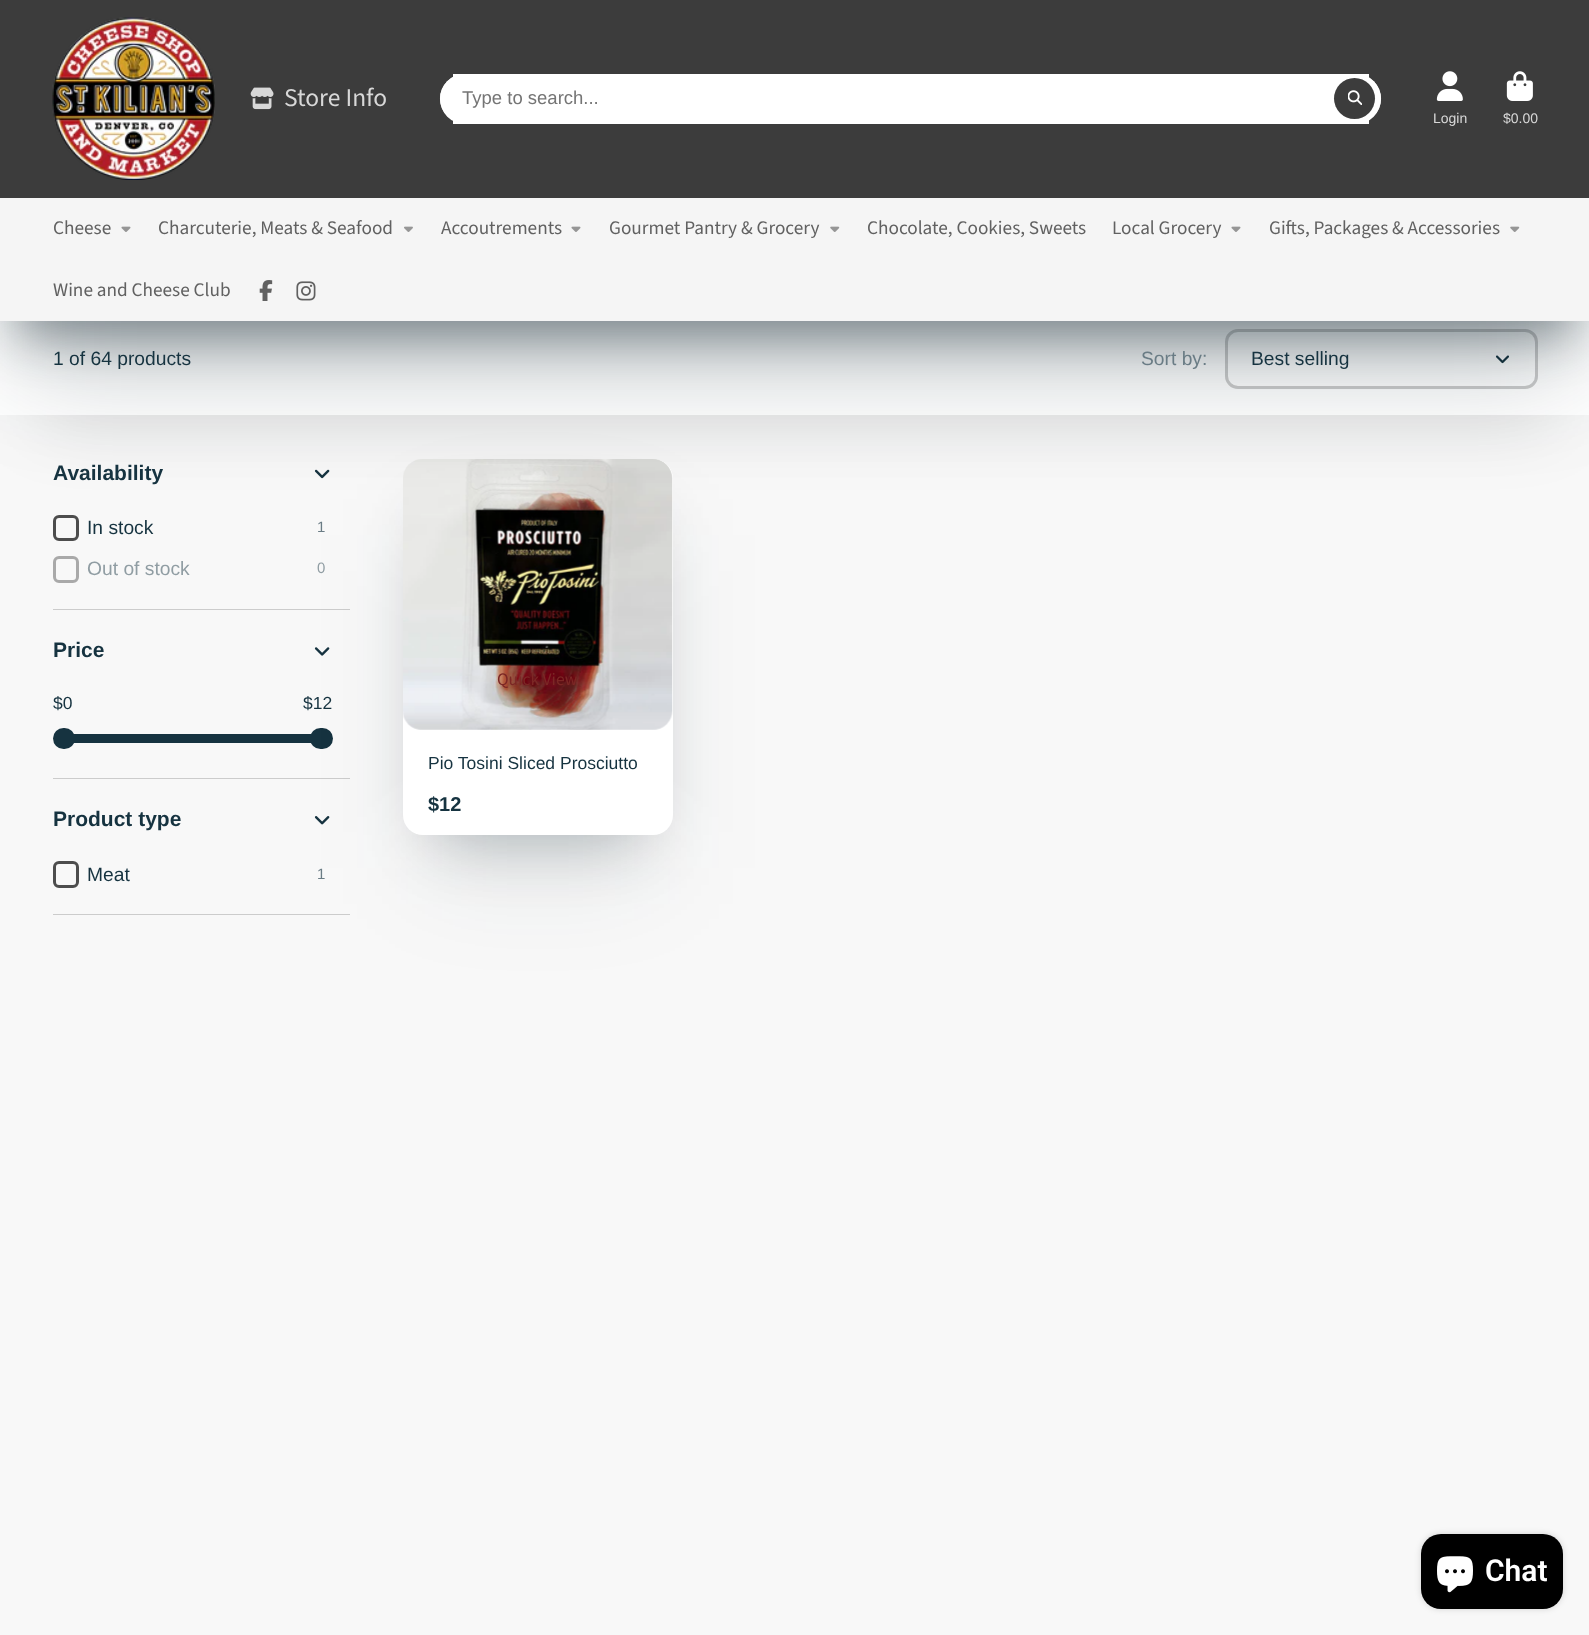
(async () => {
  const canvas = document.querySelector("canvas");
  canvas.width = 1589;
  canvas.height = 1635;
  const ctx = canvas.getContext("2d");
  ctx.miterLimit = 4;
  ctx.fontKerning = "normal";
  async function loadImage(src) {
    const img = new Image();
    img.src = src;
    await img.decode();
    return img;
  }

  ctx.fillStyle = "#f8f8f8";
  ctx.fillRect(0, 0, 1589, 1635);
  ctx.fillStyle = "rgba(0, 0, 0, 0.15)";
  ctx.filter = "blur(37.5px)";
  ctx.beginPath();
  ctx.rect(38, 378, 1515, 37);
  ctx.fill();
  ctx.filter = "none";
  ctx.fillStyle = "#ffffff";
  ctx.fillRect(0, 321, 1589, 94);
  ctx.beginPath();
  ctx.roundRect(1226.5, 330.5, 310, 57, 11.5);
  ctx.strokeStyle = "#cccccc";
  ctx.lineWidth = 3;
  ctx.stroke();
  ctx.drawImage(await loadImage("img/11.png"), 1495, 355, 14, 9);
  ctx.fillStyle = "rgba(15, 36, 45, 0.4)";
  ctx.filter = "blur(24px)";
  ctx.beginPath();
  ctx.rect(18, 50, 1555, 286);
  ctx.fill();
  ctx.filter = "none";
  ctx.drawImage(await loadImage("img/12.png"), 314, 469, 16, 10);
  ctx.beginPath();
  ctx.roundRect(54.5, 516.5, 23, 23, 4.5);
  ctx.strokeStyle = "#4d4d4d";
  ctx.stroke();
  for (const [x, y, w, h, color] of [
    [53, 609, 297, 1, "#cccccc"],
    [53, 778, 297, 1, "#cccccc"],
    [53, 914, 297, 1, "#cccccc"],
  ]) {
    ctx.fillStyle = color;
    ctx.fillRect(x, y, w, h);
  }
  ctx.fillStyle = "rgba(15, 36, 45, 0.3)";
  ctx.filter = "blur(33px)";
  ctx.beginPath();
  ctx.rect(435, 525, 205, 310);
  ctx.fill();
  ctx.filter = "none";
  ctx.drawImage(await loadImage("img/13.png"), 314, 647, 16, 9);
  ctx.fillStyle = "#163340";
  ctx.beginPath();
  ctx.roundRect(53, 728, 22, 21, 10.5);
  ctx.fill();
  ctx.beginPath();
  ctx.roundRect(310, 728, 23, 21, 10.5);
  ctx.fill();
  ctx.fillRect(74, 734, 237, 9);
  ctx.drawImage(await loadImage("img/14.png"), 314, 816, 16, 9);
  ctx.fillStyle = "rgba(15, 36, 45, 0.1)";
  ctx.filter = "blur(54.5px)";
  ctx.beginPath();
  ctx.rect(425, 535, 226, 333);
  ctx.fill();
  ctx.filter = "none";
  ctx.fillStyle = "#ffffff";
  ctx.beginPath();
  ctx.roundRect(403, 459, 270, 376, 20);
  ctx.fill();
  ctx.beginPath();
  ctx.roundRect(403, 459, 270, 271, 20);
  ctx.fill();
  ctx.drawImage(await loadImage("img/15.png"), 403, 459, 270, 271);
  ctx.fillStyle = "rgba(15, 36, 45, 0.3)";
  ctx.filter = "blur(54.5px)";
  ctx.beginPath();
  ctx.rect(18, 73, 1555, 286);
  ctx.fill();
  ctx.filter = "none";
  ctx.fillStyle = "#3c3c3c";
  ctx.fillRect(0, 0, 1589, 198);
  ctx.drawImage(await loadImage("img/1.png"), 52, 17, 163, 163);
  ctx.drawImage(await loadImage("img/2.png"), 250, 87, 24, 23);
  ctx.fillStyle = "#ffffff";
  ctx.beginPath();
  ctx.roundRect(440, 74, 941, 50, 25);
  ctx.fill();
  ctx.fillRect(453, 74, 916, 50);
  ctx.beginPath();
  ctx.roundRect(440, 74, 941, 49, 24.5);
  ctx.fill();
  ctx.fillStyle = "#3c3c3c";
  ctx.beginPath();
  ctx.arc(1354.5, 98.5, 20.5, 0, Math.PI * 2);
  ctx.fill();
  ctx.drawImage(await loadImage("img/3.png"), 1348, 90, 14, 15);
  ctx.drawImage(await loadImage("img/4.png"), 1436, 71, 27, 30);
  ctx.drawImage(await loadImage("img/5.png"), 1506, 71, 27, 30);
  ctx.fillStyle = "#f5f5f5";
  ctx.fillRect(0, 198, 1589, 123);
  ctx.drawImage(await loadImage("img/6.png"), 121, 226, 10, 6);
  ctx.drawImage(await loadImage("img/7.png"), 404, 226, 9, 6);
  ctx.drawImage(await loadImage("img/6.png"), 571, 226, 10, 6);
  ctx.drawImage(await loadImage("img/8.png"), 830, 226, 10, 6);
  ctx.drawImage(await loadImage("img/6.png"), 1231, 226, 10, 6);
  ctx.drawImage(await loadImage("img/8.png"), 1510, 226, 10, 6);
  ctx.drawImage(await loadImage("img/9.png"), 259, 280, 14, 21);
  ctx.drawImage(await loadImage("img/10.png"), 296, 281, 20, 20);
  ctx.beginPath();
  ctx.roundRect(54.5, 557.5, 23, 24, 4.5);
  ctx.strokeStyle = "#a9a9a9";
  ctx.stroke();
  ctx.beginPath();
  ctx.roundRect(54.5, 862.5, 23, 24, 4.5);
  ctx.strokeStyle = "#4d4d4d";
  ctx.stroke();
  ctx.fillStyle = "rgba(0, 0, 0, 0.15)";
  ctx.filter = "blur(3px)";
  ctx.beginPath();
  ctx.roundRect(1421, 1534, 142, 75, 20);
  ctx.fill();
  ctx.filter = "none";
  ctx.fillStyle = "#000000";
  ctx.beginPath();
  ctx.roundRect(1421, 1534, 142, 75, 20);
  ctx.fill();
  ctx.drawImage(await loadImage("img/16.png"), 1437, 1556, 36, 37);
  ctx.font = "25.5px Source Sans Pro";
  ctx.fillStyle = "#d8d8d8";
  ctx.fillText("Store Info", 284, 106);
  ctx.font = "18.5px Liberation Sans";
  ctx.fillStyle = "#757575";
  ctx.fillText("Type to search...", 462, 104);
  ctx.font = "14px Liberation Sans";
  ctx.fillStyle = "#d8d8d8";
  ctx.fillText("Login", 1433, 123);
  ctx.fillText("$0.00", 1503, 123);
  ctx.font = "19.25px Source Sans Pro";
  ctx.fillStyle = "#616161";
  for (const [text, x, y] of [
    ["Cheese", 53, 234],
    ["Charcuterie, Meats & Seafood", 158, 234],
    ["Accoutrements", 441, 234],
    ["Gourmet Pantry & Grocery", 609, 234],
    ["Chocolate, Cookies, Sweets", 867, 234],
    ["Local Grocery", 1112, 234],
    ["Gifts, Packages & Accessories", 1269, 234],
    ["Wine and Cheese Club", 53, 296],
  ]) {
    ctx.fillText(text, x, y);
  }
  ctx.font = "19.25px Liberation Sans";
  ctx.fillStyle = "#163340";
  ctx.fillText("1 of 64 products", 53, 365);
  ctx.fillStyle = "#6a7c85";
  ctx.fillText("Sort by:", 1141, 365);
  ctx.fillStyle = "#163340";
  ctx.fillText("Best selling", 1251, 365);
  ctx.font = "bold 21px Liberation Sans";
  ctx.fillText("Availability", 53, 480);
  ctx.font = "19.25px Liberation Sans";
  ctx.fillText("In stock", 87, 534);
  ctx.font = "15px Liberation Sans";
  ctx.fillStyle = "#6a7c85";
  ctx.fillText("1", 317, 532);
  ctx.font = "19.25px Liberation Sans";
  ctx.fillStyle = "#909da3";
  ctx.fillText("Out of stock", 87, 575);
  ctx.font = "15px Liberation Sans";
  ctx.fillText("0", 317, 573);
  ctx.font = "bold 21px Liberation Sans";
  ctx.fillStyle = "#163340";
  ctx.fillText("Price", 53, 657);
  ctx.font = "17.5px Liberation Sans";
  ctx.fillText("$0", 53, 709);
  ctx.fillText("$12", 303, 709);
  ctx.font = "bold 21px Liberation Sans";
  ctx.fillText("Product type", 53, 826);
  ctx.font = "19.25px Liberation Sans";
  ctx.fillText("Meat", 87, 881);
  ctx.font = "15px Liberation Sans";
  ctx.fillStyle = "#6a7c85";
  ctx.fillText("1", 317, 879);
  ctx.font = "17.5px Source Sans Pro";
  ctx.fillStyle = "#7c2725";
  ctx.fillText("Quick View", 497, 685);
  ctx.font = "17.5px Liberation Sans";
  ctx.fillStyle = "#163340";
  ctx.fillText("Pio Tosini Sliced Prosciutto", 428, 769);
  ctx.font = "bold 20px Liberation Sans";
  ctx.fillText("$12", 428, 811);
  ctx.font = "600 30px Roboto";
  ctx.fillStyle = "#ffffff";
  ctx.fillText("Chat", 1485, 1581);
})();
